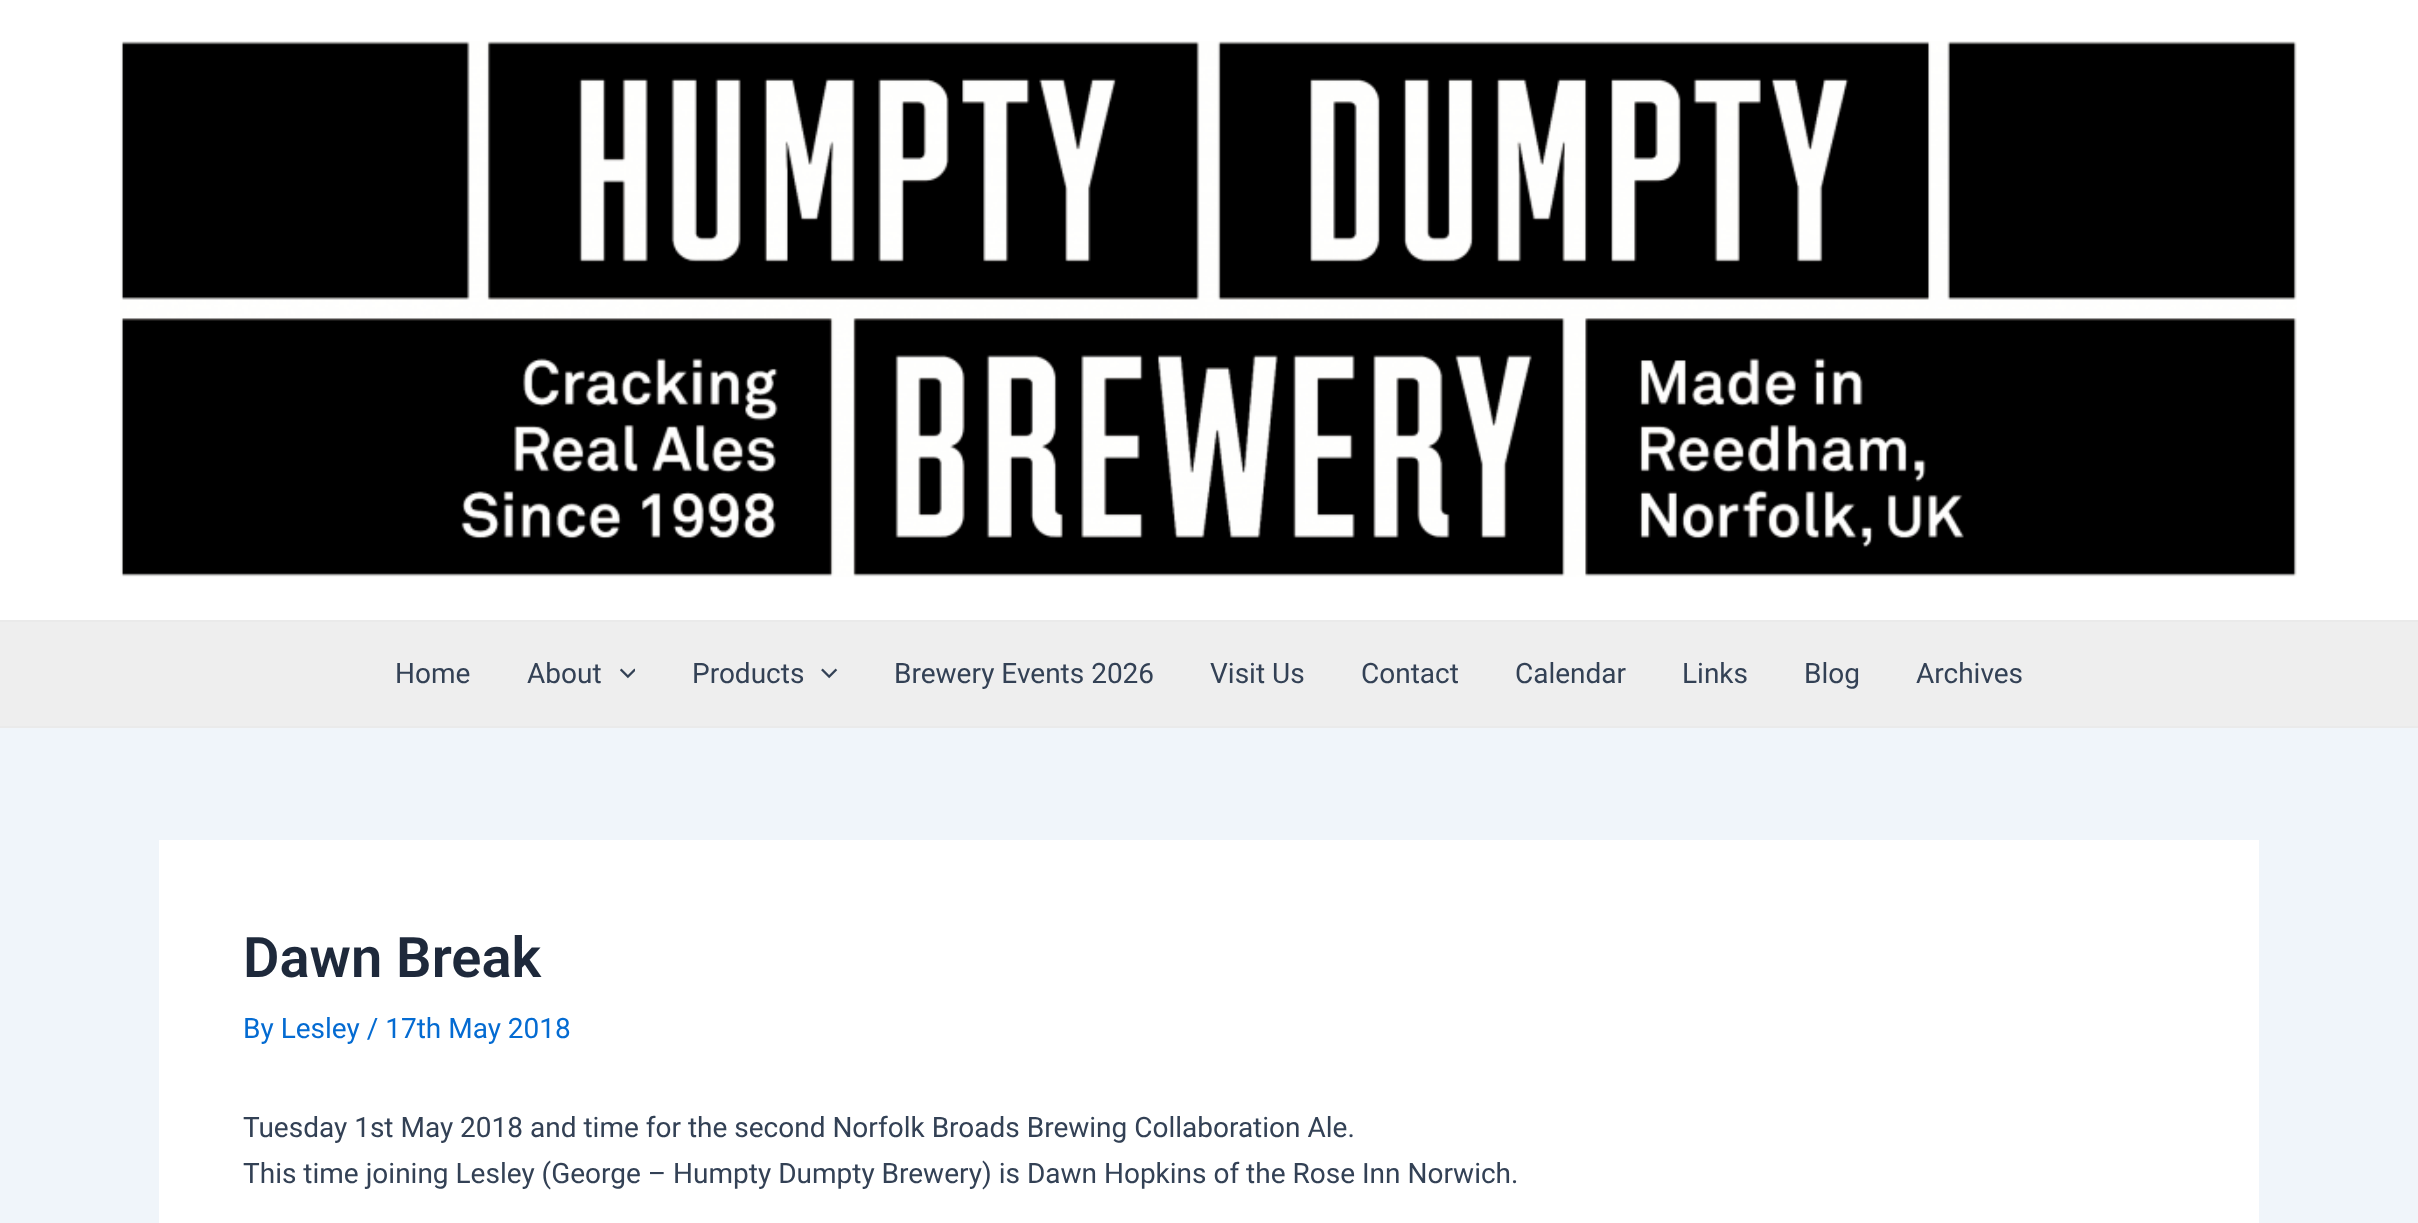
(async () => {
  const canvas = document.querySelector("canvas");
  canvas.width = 2418;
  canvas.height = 1223;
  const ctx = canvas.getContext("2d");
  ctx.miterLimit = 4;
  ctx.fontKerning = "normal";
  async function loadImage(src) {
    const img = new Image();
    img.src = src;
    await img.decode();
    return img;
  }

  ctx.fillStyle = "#f0f5fa";
  ctx.fillRect(0, 0, 2418, 1223);
  ctx.fillStyle = "#ffffff";
  ctx.fillRect(0, 0, 2418, 620);
  ctx.fillStyle = "#eaeaea";
  ctx.fillRect(0, 620, 2418, 2);
  ctx.drawImage(await loadImage("img/1.png"), 120, 41, 2177, 536);
  ctx.fillStyle = "#eeeeee";
  ctx.fillRect(0, 622, 2418, 104);
  ctx.fillStyle = "#eaeaea";
  ctx.fillRect(0, 726, 2418, 2);
  ctx.drawImage(await loadImage("img/2.png"), 620, 668, 15, 11);
  ctx.drawImage(await loadImage("img/3.png"), 821, 668, 17, 11);
  ctx.fillStyle = "#ffffff";
  ctx.fillRect(159, 840, 2100, 383);
  ctx.font = "28px Roboto";
  ctx.fillStyle = "#334155";
  for (const [text, x, y] of [
    ["Home", 395, 683],
    ["About", 527, 683],
    ["Products", 692, 683],
    ["Brewery Events 2026", 894, 683],
    ["Visit Us", 1210, 683],
    ["Contact", 1361, 683],
    ["Calendar", 1515, 683],
    ["Links", 1682, 683],
    ["Blog", 1804, 683],
    ["Archives", 1916, 683],
  ]) {
    ctx.fillText(text, x, y);
  }
  ctx.font = "600 56px Roboto";
  ctx.fillStyle = "#1e293b";
  ctx.fillText("Dawn Break", 243, 977);
  ctx.font = "28px Roboto";
  ctx.fillStyle = "#046bd2";
  ctx.fillText("By Lesley / 17th May 2018", 243, 1038);
  ctx.fillStyle = "#334155";
  ctx.fillText("Tuesday 1st May 2018 and time for the second Norfolk Broads Brewing Collaboration Ale.", 243, 1137);
  ctx.fillText("This time joining Lesley (George – Humpty Dumpty Brewery) is Dawn Hopkins of the Rose Inn Norwich.", 243, 1183);
})();
